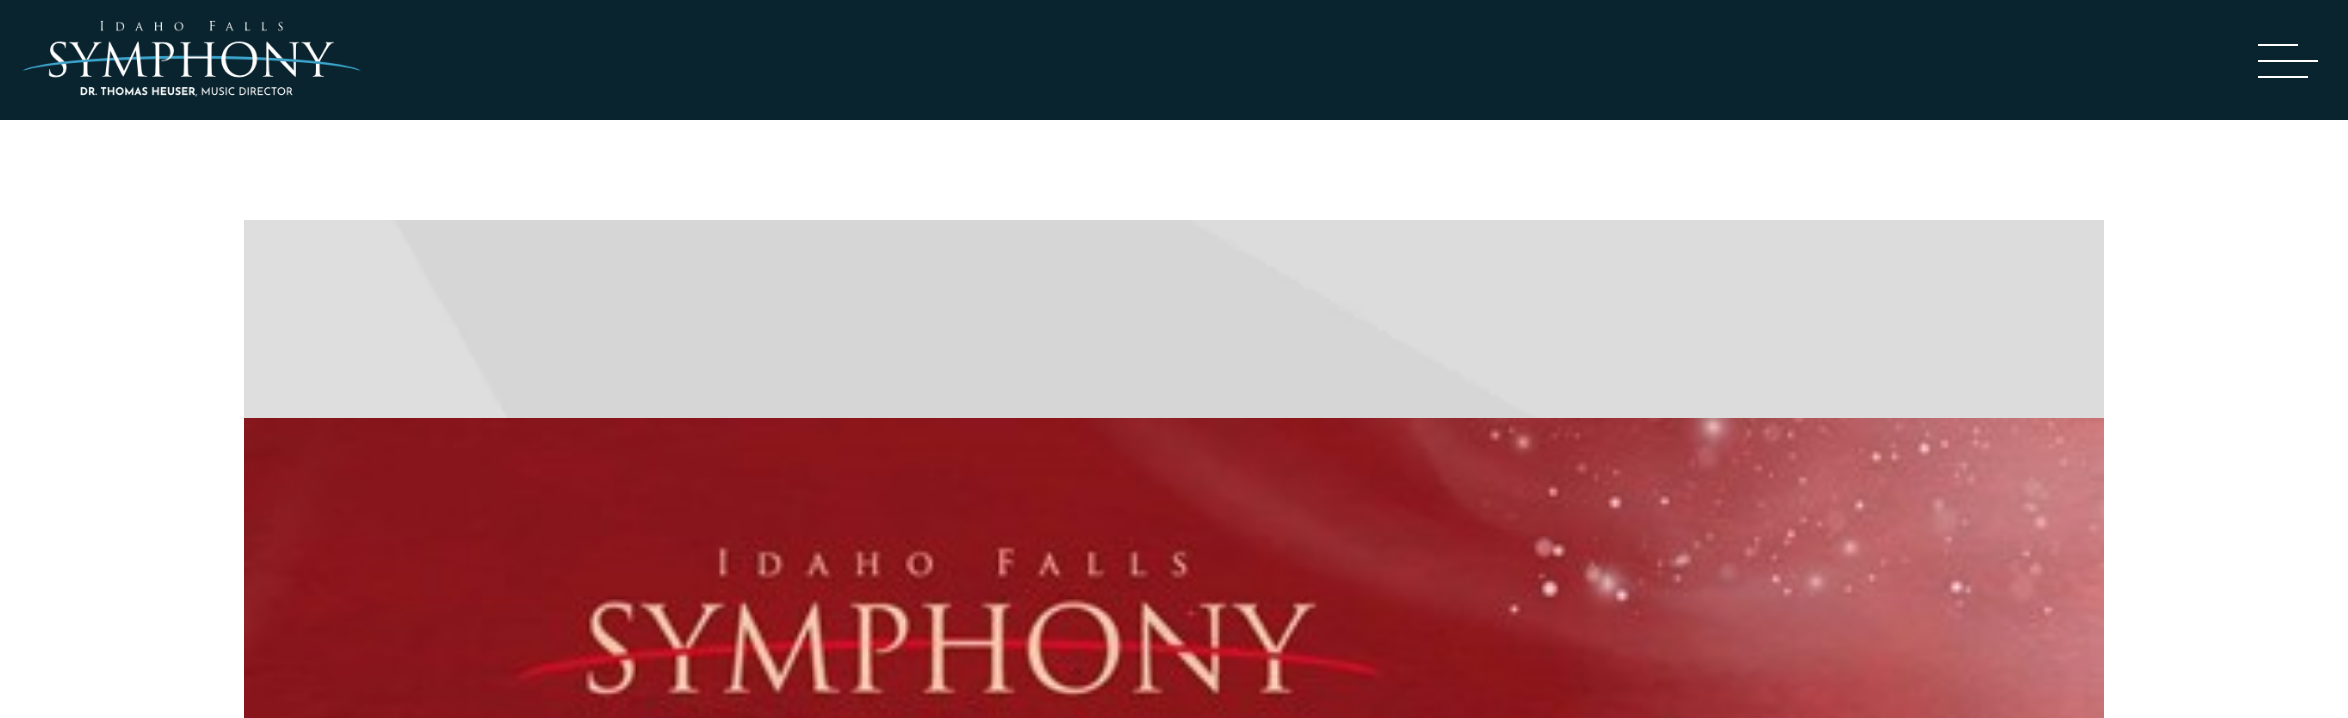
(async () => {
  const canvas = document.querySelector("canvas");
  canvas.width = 2348;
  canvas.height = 718;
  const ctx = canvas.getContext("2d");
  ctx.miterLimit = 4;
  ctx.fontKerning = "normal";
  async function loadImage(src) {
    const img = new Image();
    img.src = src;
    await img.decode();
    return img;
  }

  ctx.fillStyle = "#ffffff";
  ctx.fillRect(0, 0, 2348, 718);
  ctx.fillStyle = "#09242e";
  ctx.fillRect(0, 0, 2348, 120);
  ctx.drawImage(await loadImage("img/1.png"), 22, 20, 339, 77);
  for (const [x, y, w, h, color] of [
    [2258, 60, 60, 2, "#ffffff"],
    [2258, 44, 40, 2, "#ffffff"],
    [2258, 76, 50, 2, "#ffffff"],
  ]) {
    ctx.fillStyle = color;
    ctx.fillRect(x, y, w, h);
  }
  ctx.drawImage(await loadImage("img/2.png"), 244, 220, 1860, 198);
  ctx.drawImage(await loadImage("img/3.png"), 244, 418, 1860, 300);
})();
